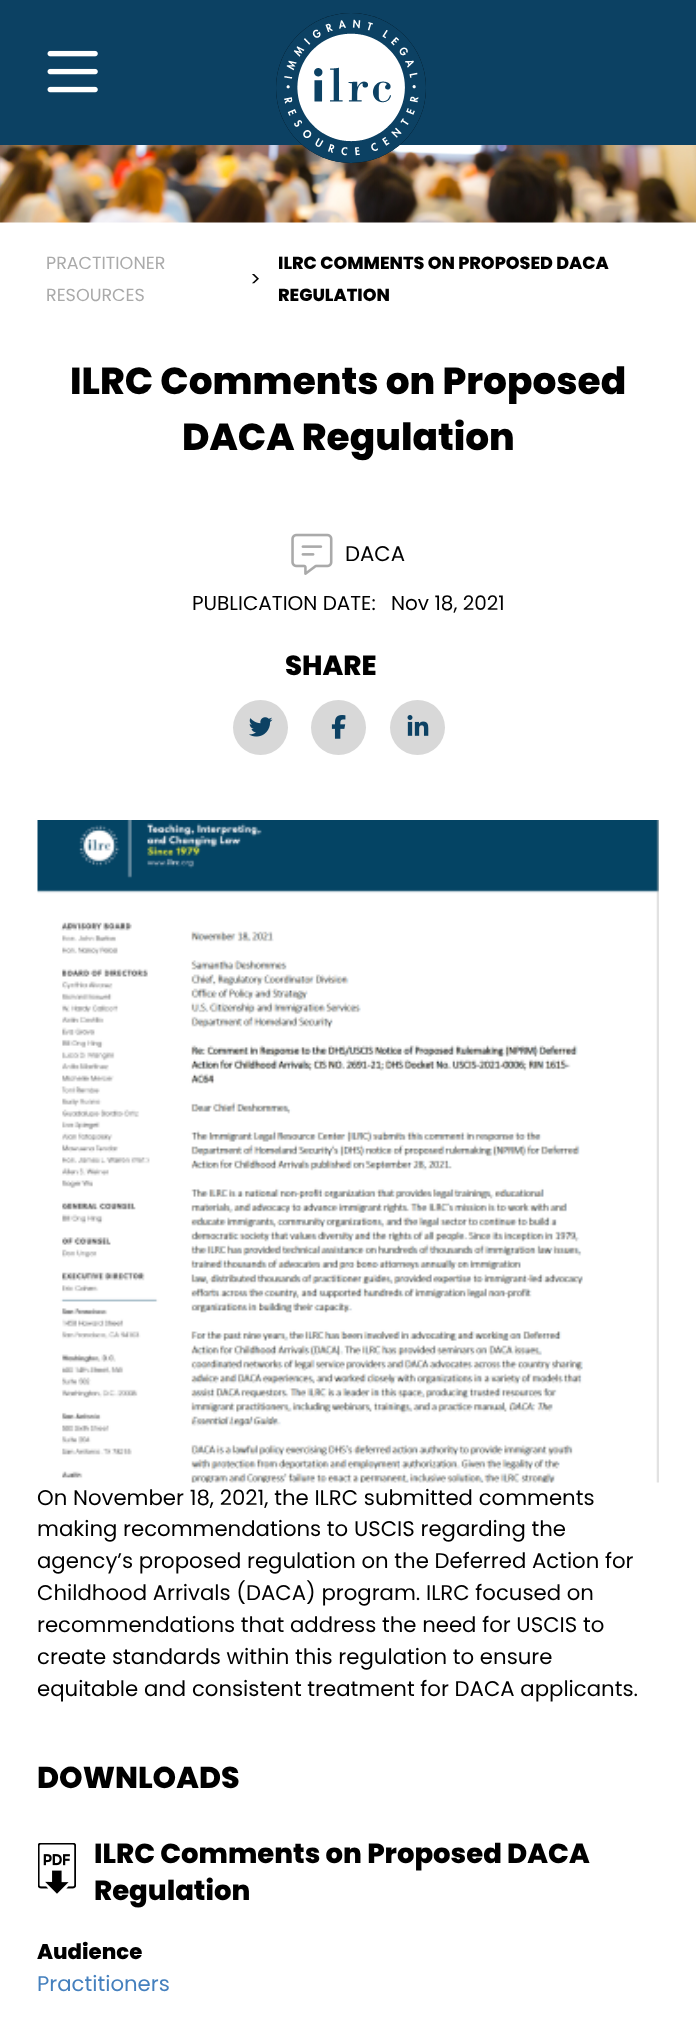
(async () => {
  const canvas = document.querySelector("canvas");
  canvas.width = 696;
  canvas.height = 2024;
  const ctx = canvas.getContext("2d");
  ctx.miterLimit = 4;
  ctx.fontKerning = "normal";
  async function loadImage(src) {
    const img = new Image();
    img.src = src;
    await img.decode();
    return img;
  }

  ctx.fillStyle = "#ffffff";
  ctx.fillRect(0, 0, 696, 2024);
  ctx.fillStyle = "#0c4163";
  ctx.fillRect(0, 0, 696, 145);
  ctx.drawImage(await loadImage("img/1.png"), 47, 50, 51, 43);
  ctx.drawImage(await loadImage("img/3.png"), 0, 145, 696, 78);
  ctx.fillStyle = "#000000";
  ctx.filter = "blur(0.5px)";
  ctx.beginPath();
  ctx.roundRect(276, 13, 150, 150, 75);
  ctx.fill();
  ctx.filter = "none";
  ctx.fillStyle = "#0c4163";
  ctx.beginPath();
  ctx.arc(351, 88, 75, 0, Math.PI * 2);
  ctx.fill();
  ctx.drawImage(await loadImage("img/2.png"), 284, 19, 135, 137);
  ctx.drawImage(await loadImage("img/4.png"), 291, 533, 42, 42);
  ctx.fillStyle = "#d8d8d8";
  ctx.beginPath();
  ctx.arc(260.5, 727.5, 27.5, 0, Math.PI * 2);
  ctx.fill();
  ctx.drawImage(await loadImage("img/5.png"), 249, 717, 24, 20);
  ctx.beginPath();
  ctx.arc(338.5, 727.5, 27.5, 0, Math.PI * 2);
  ctx.fill();
  ctx.drawImage(await loadImage("img/6.png"), 331, 715, 15, 24);
  ctx.beginPath();
  ctx.arc(417.5, 727.5, 27.5, 0, Math.PI * 2);
  ctx.fill();
  ctx.drawImage(await loadImage("img/7.png"), 407, 715, 22, 21);
  ctx.drawImage(await loadImage("img/8.png"), 37, 820, 622, 663);
  ctx.drawImage(await loadImage("img/9.png"), 38, 1843, 38, 51);
  ctx.font = "17.5px Poppins";
  ctx.fillStyle = "#aaaaaa";
  ctx.fillText("PRACTITIONER", 46, 269);
  ctx.fillText("RESOURCES", 46, 301);
  ctx.font = "20px Poppins";
  ctx.fillStyle = "#000000";
  ctx.fillText(">", 250, 286);
  ctx.font = "800 17.5px Poppins";
  ctx.fillText("ILRC COMMENTS ON PROPOSED DACA", 278, 269);
  ctx.fillText("REGULATION", 278, 301);
  ctx.font = "800 37.5px Poppins";
  ctx.fillText("ILRC Comments on Proposed", 70, 394);
  ctx.fillText("DACA Regulation", 182, 450);
  ctx.font = "21.25px Poppins";
  ctx.fillText("DACA", 345, 561);
  ctx.font = "20px Poppins";
  ctx.fillText("PUBLICATION DATE:", 192, 610);
  ctx.fillText("Nov 18, 2021", 391, 610);
  ctx.font = "800 27.5px Poppins";
  ctx.fillText("SHARE", 285, 675);
  ctx.font = "21.25px Poppins";
  for (const [text, x, y] of [
    ["On November 18, 2021, the ILRC submitted comments", 37, 1505],
    ["making recommendations to USCIS regarding the", 37, 1536],
    ["agency’s proposed regulation on the Deferred Action for", 37, 1568],
    ["Childhood Arrivals (DACA) program. ILRC focused on", 37, 1600],
    ["recommendations that address the need for USCIS to", 37, 1632],
    ["create standards within this regulation to ensure", 37, 1664],
    ["equitable and consistent treatment for DACA applicants.", 37, 1696],
  ]) {
    ctx.fillText(text, x, y);
  }
  ctx.font = "800 30px Poppins";
  ctx.fillText("DOWNLOADS", 37, 1788);
  ctx.font = "800 27.5px Poppins";
  ctx.fillText("ILRC Comments on Proposed DACA", 94, 1863);
  ctx.fillText("Regulation", 94, 1900);
  ctx.font = "800 21.25px Poppins";
  ctx.fillText("Audience", 37, 1959);
  ctx.font = "21.25px Poppins";
  ctx.fillStyle = "#4580be";
  ctx.fillText("Practitioners", 37, 1991);
})();
